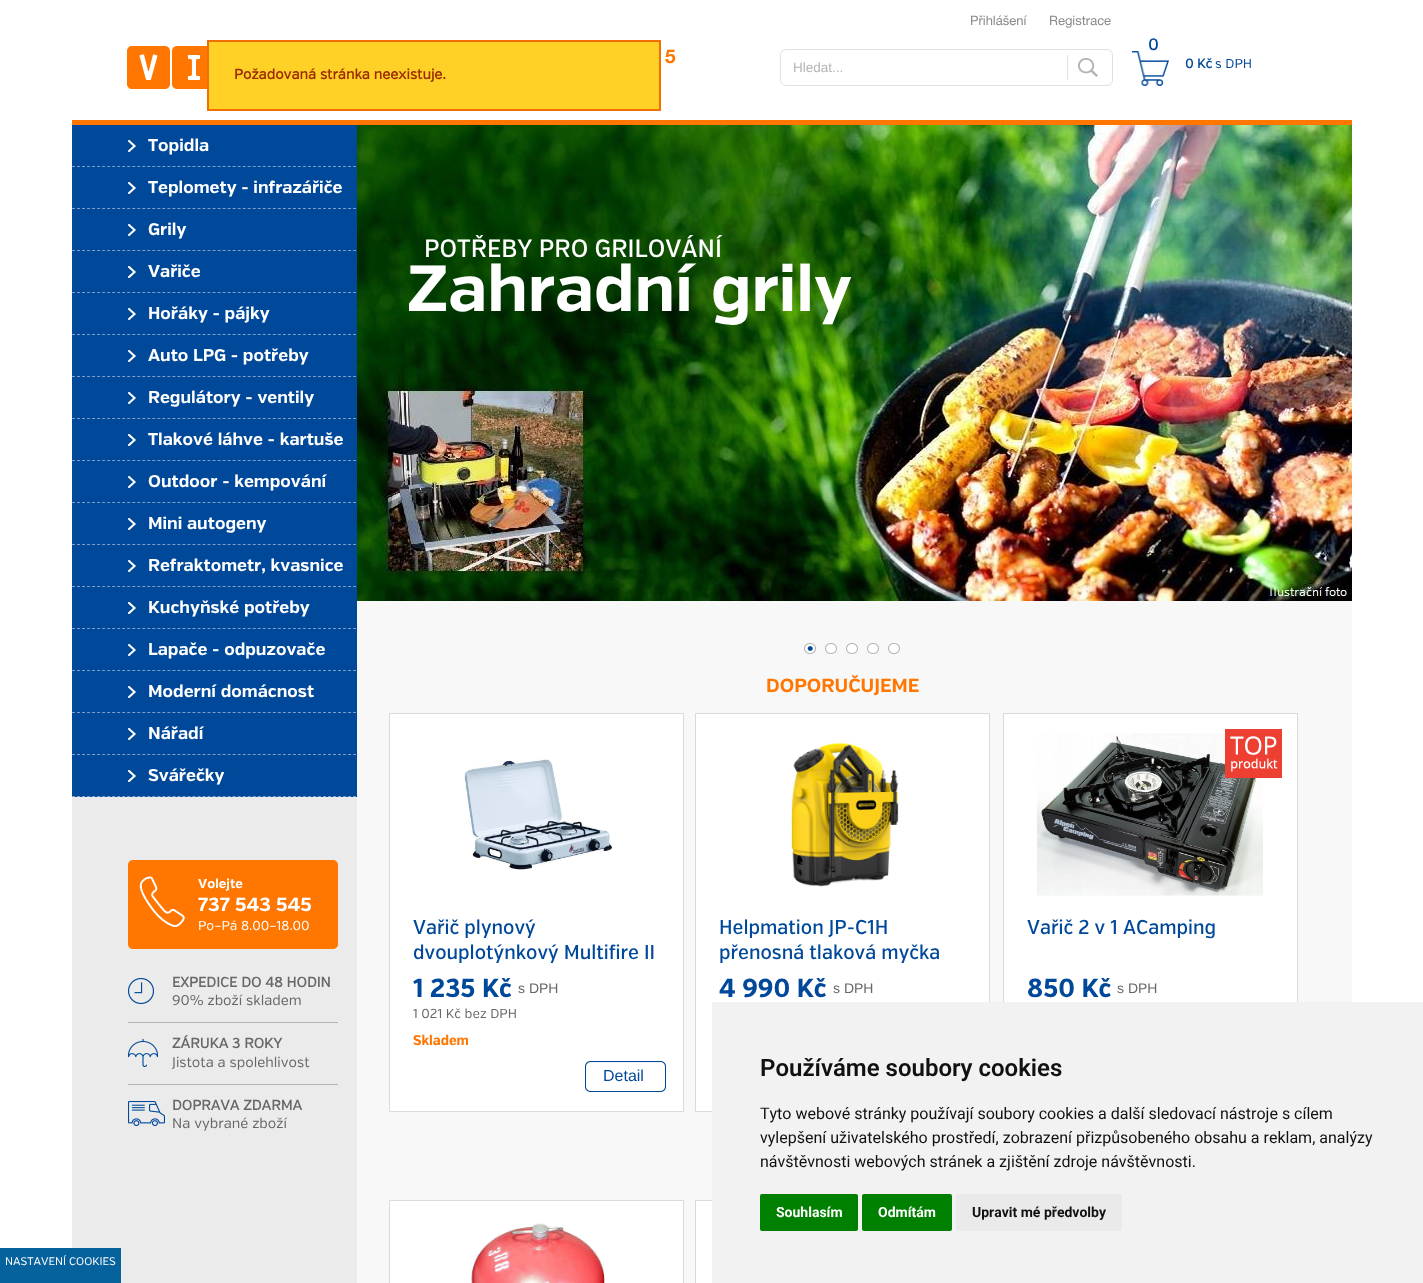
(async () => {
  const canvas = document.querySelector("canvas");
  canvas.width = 1423;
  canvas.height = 1283;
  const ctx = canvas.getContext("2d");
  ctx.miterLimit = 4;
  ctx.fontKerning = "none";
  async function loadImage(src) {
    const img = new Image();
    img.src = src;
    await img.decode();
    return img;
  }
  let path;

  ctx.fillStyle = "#ffffff";
  ctx.fillRect(0, 0, 1423, 1283);
  ctx.fillStyle = "#ff7601";
  ctx.fillRect(72, 120, 1280, 5);
  ctx.drawImage(await loadImage("img/1.png"), 127, 46, 80, 43);
  ctx.drawImage(await loadImage("img/2.png"), 1132, 51, 37, 35);
  ctx.beginPath();
  ctx.roundRect(780.5, 49.5, 332, 36, 5.5);
  ctx.strokeStyle = "#e1e1e1";
  ctx.stroke();
  ctx.drawImage(await loadImage("img/3.png"), 1078, 58, 20, 19);
  for (const [x, y, w, h, color] of [
    [1067, 55, 1, 25, "#e1e1e1"],
    [72, 797, 285, 486, "#ebebeb"],
    [72, 125, 285, 672, "#00489a"],
  ]) {
    ctx.fillStyle = color;
    ctx.fillRect(x, y, w, h);
  }
  ctx.drawImage(await loadImage("img/4.png"), 128, 140, 8, 12);
  path = new Path2D("M72 166.5H356");
  ctx.strokeStyle = "#7ca0c9";
  ctx.setLineDash([3, 2.02]);
  ctx.stroke(path);
  ctx.drawImage(await loadImage("img/4.png"), 128, 182, 8, 12);
  path = new Path2D("M72 208.5H356");
  ctx.stroke(path);
  ctx.drawImage(await loadImage("img/4.png"), 128, 224, 8, 12);
  path = new Path2D("M72 250.5H356");
  ctx.stroke(path);
  ctx.drawImage(await loadImage("img/4.png"), 128, 266, 8, 12);
  path = new Path2D("M72 292.5H356");
  ctx.stroke(path);
  ctx.drawImage(await loadImage("img/4.png"), 128, 308, 8, 12);
  path = new Path2D("M72 334.5H356");
  ctx.stroke(path);
  ctx.drawImage(await loadImage("img/4.png"), 128, 350, 8, 12);
  path = new Path2D("M72 376.5H356");
  ctx.stroke(path);
  ctx.drawImage(await loadImage("img/4.png"), 128, 392, 8, 12);
  path = new Path2D("M72 418.5H356");
  ctx.stroke(path);
  ctx.drawImage(await loadImage("img/4.png"), 128, 434, 8, 12);
  path = new Path2D("M72 460.5H356");
  ctx.stroke(path);
  ctx.drawImage(await loadImage("img/4.png"), 128, 476, 8, 12);
  path = new Path2D("M72 502.5H356");
  ctx.stroke(path);
  ctx.drawImage(await loadImage("img/4.png"), 128, 518, 8, 12);
  path = new Path2D("M72 544.5H356");
  ctx.stroke(path);
  ctx.drawImage(await loadImage("img/4.png"), 128, 560, 8, 12);
  path = new Path2D("M72 586.5H356");
  ctx.stroke(path);
  ctx.drawImage(await loadImage("img/4.png"), 128, 602, 8, 12);
  path = new Path2D("M72 628.5H356");
  ctx.stroke(path);
  ctx.drawImage(await loadImage("img/4.png"), 128, 644, 8, 12);
  path = new Path2D("M72 670.5H356");
  ctx.stroke(path);
  ctx.drawImage(await loadImage("img/4.png"), 128, 686, 8, 12);
  path = new Path2D("M72 712.5H356");
  ctx.stroke(path);
  ctx.drawImage(await loadImage("img/4.png"), 128, 728, 8, 12);
  path = new Path2D("M72 754.5H356");
  ctx.stroke(path);
  ctx.drawImage(await loadImage("img/4.png"), 128, 770, 8, 12);
  path = new Path2D("M72 796.5H356");
  ctx.stroke(path);
  ctx.drawImage(await loadImage("img/5.png"), 128, 860, 210, 89);
  ctx.fillStyle = "#b4b4b4";
  ctx.fillRect(128, 1022, 210, 1);
  ctx.drawImage(await loadImage("img/6.png"), 128, 978, 26, 26);
  ctx.fillRect(128, 1084, 210, 1);
  ctx.drawImage(await loadImage("img/7.png"), 128, 1039, 30, 28);
  ctx.drawImage(await loadImage("img/8.png"), 128, 1101, 37, 25);
  ctx.fillStyle = "#f8f8f8";
  ctx.fillRect(357, 601, 995, 682);
  ctx.drawImage(await loadImage("img/9.png"), 357, 125, 995, 476);
  ctx.drawImage(await loadImage("img/10.png"), 804, 643, 12, 11);
  ctx.drawImage(await loadImage("img/11.png"), 825, 643, 12, 11);
  ctx.drawImage(await loadImage("img/11.png"), 846, 643, 12, 11);
  ctx.drawImage(await loadImage("img/11.png"), 867, 643, 12, 11);
  ctx.drawImage(await loadImage("img/11.png"), 888, 643, 12, 11);
  ctx.fillStyle = "#ffffff";
  ctx.beginPath();
  ctx.rect(389.5, 713.5, 294, 398);
  ctx.fill();
  ctx.strokeStyle = "#dadada";
  ctx.setLineDash([]);
  ctx.stroke();
  ctx.drawImage(await loadImage("img/12.png"), 464, 758, 149, 112);
  ctx.drawImage(await loadImage("img/13.png"), 585, 1061, 81, 31);
  ctx.beginPath();
  ctx.rect(695.5, 713.5, 294, 398);
  ctx.fill();
  ctx.stroke();
  ctx.drawImage(await loadImage("img/14.png"), 791, 742, 108, 145);
  ctx.fillRect(1004, 714, 293, 288);
  ctx.strokeRect(1003.5, 713.5, 294, 398);
  ctx.drawImage(await loadImage("img/16.png"), 1037, 733, 226, 163);
  ctx.drawImage(await loadImage("img/15.png"), 1225, 729, 57, 49);
  ctx.beginPath();
  ctx.rect(389.5, 1200.5, 294, 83);
  ctx.fill();
  ctx.stroke();
  ctx.drawImage(await loadImage("img/17.png"), 471, 1223, 150, 60);
  ctx.fillRect(696, 1201, 16, 82);
  ctx.strokeRect(695.5, 1200.5, 294, 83);
  ctx.fillStyle = "#ffd126";
  ctx.beginPath();
  ctx.rect(208, 41, 452, 69);
  ctx.fill();
  ctx.strokeStyle = "#f27002";
  ctx.lineWidth = 2;
  ctx.stroke();
  ctx.fillStyle = "#f2f2f2";
  ctx.fillRect(712, 1002, 711, 281);
  ctx.fillStyle = "#008000";
  ctx.beginPath();
  ctx.roundRect(760, 1194, 98, 37, 2);
  ctx.fill();
  ctx.beginPath();
  ctx.roundRect(862, 1194, 90, 37, 2);
  ctx.fill();
  ctx.fillStyle = "#eaeaea";
  ctx.beginPath();
  ctx.roundRect(956, 1194, 166, 37, 2);
  ctx.fill();
  ctx.fillStyle = "#06629c";
  ctx.fillRect(0, 1248, 121, 35);
  ctx.font = "13px 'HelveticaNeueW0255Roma'";
  ctx.fillStyle = "#8a8a8a";
  ctx.fillText("Přihlášení", 970, 25);
  ctx.fillText("Registrace", 1049, 25);
  ctx.font = "bold 19px 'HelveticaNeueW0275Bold'";
  ctx.fillStyle = "#ff7601";
  ctx.fillText("5", 665, 63);
  ctx.font = "bold 16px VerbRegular";
  ctx.fillStyle = "#00489a";
  ctx.fillText("0", 1148, 50);
  ctx.font = "bold 13px VerbRegular";
  ctx.fillText("0 Kč", 1185, 68);
  ctx.font = "13px VerbRegular";
  ctx.fillText("s DPH", 1215, 68);
  ctx.font = "13.5px Liberation Sans";
  ctx.fillStyle = "#b4b4b4";
  ctx.fillText("Hledat...", 793, 72);
  ctx.font = "bold 17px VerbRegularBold";
  ctx.fillStyle = "#ffffff";
  for (const [text, x, y] of [
    ["Topidla", 148, 151],
    ["Teplomety - infrazářiče", 148, 193],
    ["Grily", 148, 235],
    ["Vařiče", 148, 277],
    ["Hořáky - pájky", 148, 319],
    ["Auto LPG - potřeby", 148, 361],
    ["Regulátory - ventily", 148, 403],
    ["Tlakové láhve - kartuše", 148, 445],
    ["Outdoor - kempování", 148, 487],
    ["Mini autogeny", 148, 529],
    ["Refraktometr, kvasnice", 148, 571],
    ["Kuchyňské potřeby", 148, 613],
    ["Lapače - odpuzovače", 148, 655],
    ["Moderní domácnost", 148, 697],
    ["Nářadí", 148, 739],
    ["Svářečky", 148, 781],
  ]) {
    ctx.fillText(text, x, y);
  }
  ctx.font = "bold 13px VerbRegularBold";
  ctx.fillText("Volejte", 198, 888);
  ctx.font = "bold 19px VerbRegularBold";
  ctx.fillText("737 543 545", 198, 911);
  ctx.font = "13px VerbRegular";
  ctx.fillText("Po–Pá 8.00–18.00", 198, 930);
  ctx.font = "bold 14px VerbRegular";
  ctx.fillStyle = "#676767";
  ctx.fillText("EXPEDICE DO 48 HODIN", 172, 987);
  ctx.font = "14px VerbRegular";
  ctx.fillText("90% zboží skladem", 172, 1005);
  ctx.font = "bold 14px VerbRegular";
  ctx.fillText("ZÁRUKA 3 ROKY", 172, 1048);
  ctx.font = "14px VerbRegular";
  ctx.fillText("Jistota a spolehlivost", 172, 1067);
  ctx.font = "bold 14px VerbRegular";
  ctx.fillText("DOPRAVA ZDARMA", 172, 1110);
  ctx.font = "14px VerbRegular";
  ctx.fillText("Na vybrané zboží", 172, 1128);
  ctx.font = "500 25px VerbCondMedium";
  ctx.fillStyle = "#ffffff";
  ctx.fillText("POTŘEBY PRO GRILOVÁNÍ", 424, 257);
  ctx.font = "bold 65px VerbRegularBold";
  ctx.fillText("Zahradní grily", 407, 311);
  ctx.font = "bold 19px VerbRegularBold";
  ctx.fillStyle = "#ff7601";
  ctx.fillText("DOPORUČUJEME", 766, 692);
  ctx.font = "500 20px VerbCondMedium";
  ctx.fillStyle = "#00489a";
  ctx.fillText("Vařič plynový", 413, 934);
  ctx.fillText("dvouplotýnkový Multifire II", 413, 959);
  ctx.font = "bold 26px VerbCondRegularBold";
  ctx.fillText("1 235 Kč", 413, 997);
  ctx.font = "14px Liberation Sans";
  ctx.fillStyle = "#676767";
  ctx.fillText("s DPH", 518, 993);
  ctx.font = "13px VerbRegular";
  ctx.fillText("1 021 Kč bez DPH", 413, 1018);
  ctx.font = "bold 14px VerbCondRegularBold";
  ctx.fillStyle = "#ff7601";
  ctx.fillText("Skladem", 413, 1045);
  ctx.font = "16px Liberation Sans";
  ctx.fillStyle = "#00489a";
  ctx.fillText("Detail", 603, 1081);
  ctx.font = "500 20px VerbCondMedium";
  ctx.fillText("Helpmation JP-C1H", 719, 934);
  ctx.fillText("přenosná tlaková myčka", 719, 959);
  ctx.font = "bold 26px VerbCondRegularBold";
  ctx.fillText("4 990 Kč", 719, 997);
  ctx.font = "14px Liberation Sans";
  ctx.fillStyle = "#676767";
  ctx.fillText("s DPH", 833, 993);
  ctx.font = "500 20px VerbCondMedium";
  ctx.fillStyle = "#00489a";
  ctx.fillText("Vařič 2 v 1 ACamping", 1027, 934);
  ctx.font = "bold 26px VerbCondRegularBold";
  ctx.fillText("850 Kč", 1027, 997);
  ctx.font = "14px Liberation Sans";
  ctx.fillStyle = "#676767";
  ctx.fillText("s DPH", 1117, 993);
  ctx.font = "bold 14px VerbRegular";
  ctx.fillStyle = "#9b2900";
  ctx.fillText("Požadovaná stránka neexistuje.", 234, 79);
  ctx.font = "600 24px Roboto";
  ctx.fillStyle = "#111111";
  ctx.fillText("Používáme soubory cookies", 760, 1076);
  ctx.font = "16px Roboto";
  for (const [text, x, y] of [
    ["Tyto webové stránky používají soubory cookies a další sledovací nástroje s cílem", 760, 1119],
    ["vylepšení uživatelského prostředí, zobrazení přizpůsobeného obsahu a reklam, analýzy", 760, 1143],
    ["návštěvnosti webových stránek a zjištění zdroje návštěvnosti.", 760, 1167],
  ]) {
    ctx.fillText(text, x, y);
  }
  ctx.font = "bold 14px Roboto";
  ctx.fillStyle = "#ffffff";
  ctx.fillText("Souhlasím", 776, 1217);
  ctx.fillText("Odmítám", 878, 1217);
  ctx.fillStyle = "#111111";
  ctx.fillText("Upravit mé předvolby", 972, 1217);
  ctx.font = "11px VerbRegular";
  ctx.fillStyle = "#ffffff";
  ctx.fillText("NASTAVENÍ COOKIES", 5, 1265);
})();
